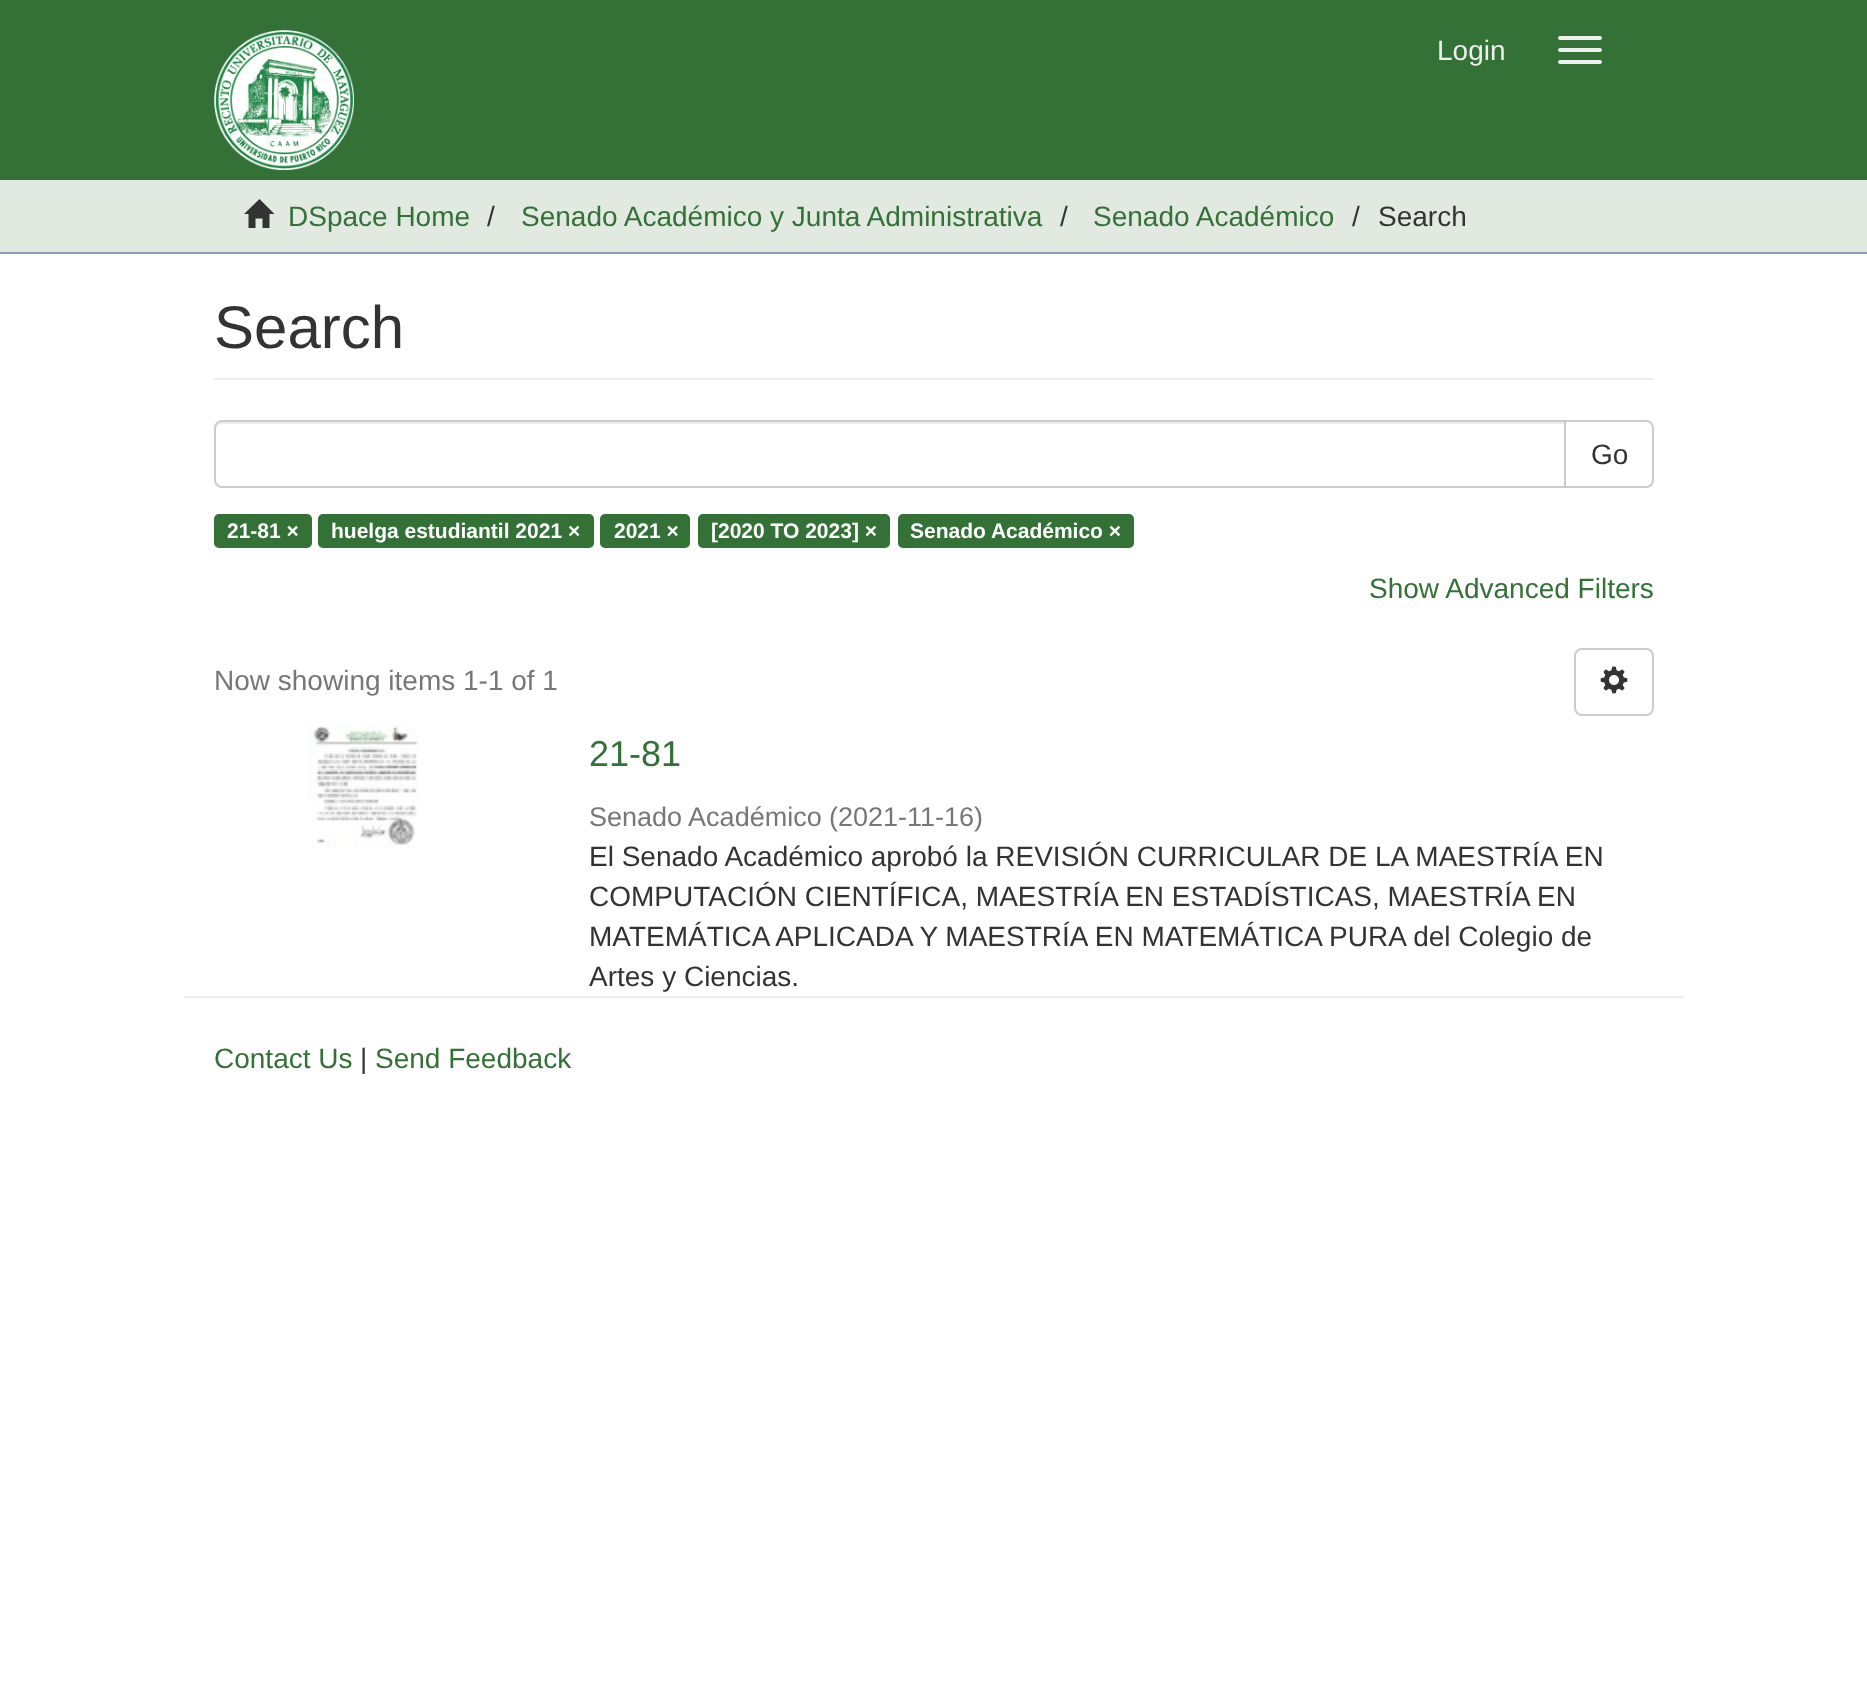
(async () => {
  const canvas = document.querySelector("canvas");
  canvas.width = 1867;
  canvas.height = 1695;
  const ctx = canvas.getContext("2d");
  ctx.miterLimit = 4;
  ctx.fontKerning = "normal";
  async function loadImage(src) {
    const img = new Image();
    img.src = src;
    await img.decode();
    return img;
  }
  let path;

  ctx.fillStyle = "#ffffff";
  ctx.fillRect(0, 0, 1867, 1695);
  ctx.fillStyle = "#337137";
  ctx.fillRect(0, 0, 1867, 180);
  ctx.drawImage(await loadImage("img/1.png"), 214, 30, 140, 140);
  ctx.fillStyle = "#eeeeee";
  ctx.beginPath();
  ctx.roundRect(1558, 36, 44, 4, 2);
  ctx.fill();
  ctx.beginPath();
  ctx.roundRect(1558, 48, 44, 4, 2);
  ctx.fill();
  ctx.beginPath();
  ctx.roundRect(1558, 60, 44, 4, 2);
  ctx.fill();
  ctx.fillStyle = "#e1e9e1";
  ctx.fillRect(0, 180, 1867, 72);
  ctx.fillStyle = "#8b9eb2";
  ctx.fillRect(0, 252, 1867, 2);
  ctx.fillStyle = "#333333";
  path = new Path2D("M244 214L259.5 199L274.5 214H269.5V228H262.5V218.5H255.5V228H248.5V214Z");
  ctx.fill(path);
  ctx.fillStyle = "#eeeeee";
  ctx.fillRect(214, 378, 1440, 2);
  ctx.beginPath();
  ctx.roundRect(1565, 421, 88, 66, [0, 7, 7, 0]);
  ctx.strokeStyle = "#cccccc";
  ctx.lineWidth = 2;
  ctx.stroke();
  ctx.fillStyle = "#ffffff";
  ctx.beginPath();
  ctx.roundRect(214, 420, 1352, 68, [8, 0, 0, 8]);
  ctx.fill();
  ctx.fillStyle = "#ececec";
  path = new Path2D("M222 424H1564V422H222C219 422 216 425 216 428V430C216 427 219 424 222 424Z");
  ctx.fill(path);
  ctx.beginPath();
  ctx.roundRect(215, 421, 1350, 66, [7, 0, 0, 7]);
  ctx.stroke();
  ctx.fillStyle = "#337137";
  ctx.beginPath();
  ctx.roundRect(214, 514, 98, 34, 5);
  ctx.fill();
  ctx.beginPath();
  ctx.roundRect(318, 514, 276, 34, 5);
  ctx.fill();
  ctx.beginPath();
  ctx.roundRect(600, 514, 90, 34, 5);
  ctx.fill();
  ctx.beginPath();
  ctx.roundRect(698, 514, 192, 34, 5);
  ctx.fill();
  ctx.beginPath();
  ctx.roundRect(898, 514, 236, 34, 5);
  ctx.fill();
  ctx.beginPath();
  ctx.roundRect(1575, 649, 78, 66, 7);
  ctx.stroke();
  ctx.drawImage(await loadImage("img/2.png"), 1600, 666, 28, 28);
  ctx.drawImage(await loadImage("img/3.png"), 308, 724, 111, 124);
  ctx.fillStyle = "#eeeeee";
  ctx.fillRect(184, 996, 1500, 2);
  ctx.font = "28px Liberation Sans";
  ctx.fillText("Login", 1437, 60);
  ctx.fillStyle = "#337137";
  ctx.fillText("DSpace Home", 288, 226);
  ctx.fillStyle = "#333333";
  ctx.fillText("/", 487, 226);
  ctx.fillStyle = "#337137";
  ctx.fillText("Senado Académico y Junta Administrativa", 521, 226);
  ctx.fillStyle = "#333333";
  ctx.fillText("/", 1060, 226);
  ctx.fillStyle = "#337137";
  ctx.fillText("Senado Académico", 1093, 226);
  ctx.fillStyle = "#333333";
  ctx.fillText("/", 1352, 226);
  ctx.fillText("Search", 1378, 226);
  ctx.font = "60px Liberation Sans";
  ctx.fillText("Search", 214, 348);
  ctx.font = "28px Liberation Sans";
  ctx.fillText("Go", 1591, 464);
  ctx.font = "bold 21px Liberation Sans";
  ctx.fillStyle = "#ffffff";
  for (const [text, x, y] of [
    ["21-81 ×", 227, 538],
    ["huelga estudiantil 2021 ×", 331, 538],
    ["2021 ×", 614, 538],
    ["[2020 TO 2023] ×", 711, 538],
    ["Senado Académico ×", 910, 538],
  ]) {
    ctx.fillText(text, x, y);
  }
  ctx.font = "28px Liberation Sans";
  ctx.fillStyle = "#337137";
  ctx.fillText("Show Advanced Filters", 1369, 598);
  ctx.fillStyle = "#777777";
  ctx.fillText("Now showing items 1-1 of 1", 214, 690);
  ctx.font = "36px Liberation Sans";
  ctx.fillStyle = "#337137";
  ctx.fillText("21-81", 589, 766);
  ctx.font = "27px Liberation Sans";
  ctx.fillStyle = "#777777";
  ctx.fillText("Senado Académico", 589, 826);
  ctx.fillText("(2021-11-16)", 829, 826);
  ctx.font = "28px Liberation Sans";
  ctx.fillStyle = "#333333";
  for (const [text, x, y] of [
    ["El Senado Académico aprobó la REVISIÓN CURRICULAR DE LA MAESTRÍA EN", 589, 866],
    ["COMPUTACIÓN CIENTÍFICA, MAESTRÍA EN ESTADÍSTICAS, MAESTRÍA EN", 589, 906],
    ["MATEMÁTICA APLICADA Y MAESTRÍA EN MATEMÁTICA PURA del Colegio de", 589, 946],
    ["Artes y Ciencias.", 589, 986],
  ]) {
    ctx.fillText(text, x, y);
  }
  ctx.fillStyle = "#337137";
  ctx.fillText("Contact Us", 214, 1068);
  ctx.fillStyle = "#333333";
  ctx.fillText("|", 360, 1068);
  ctx.fillStyle = "#337137";
  ctx.fillText("Send Feedback", 375, 1068);
})();
